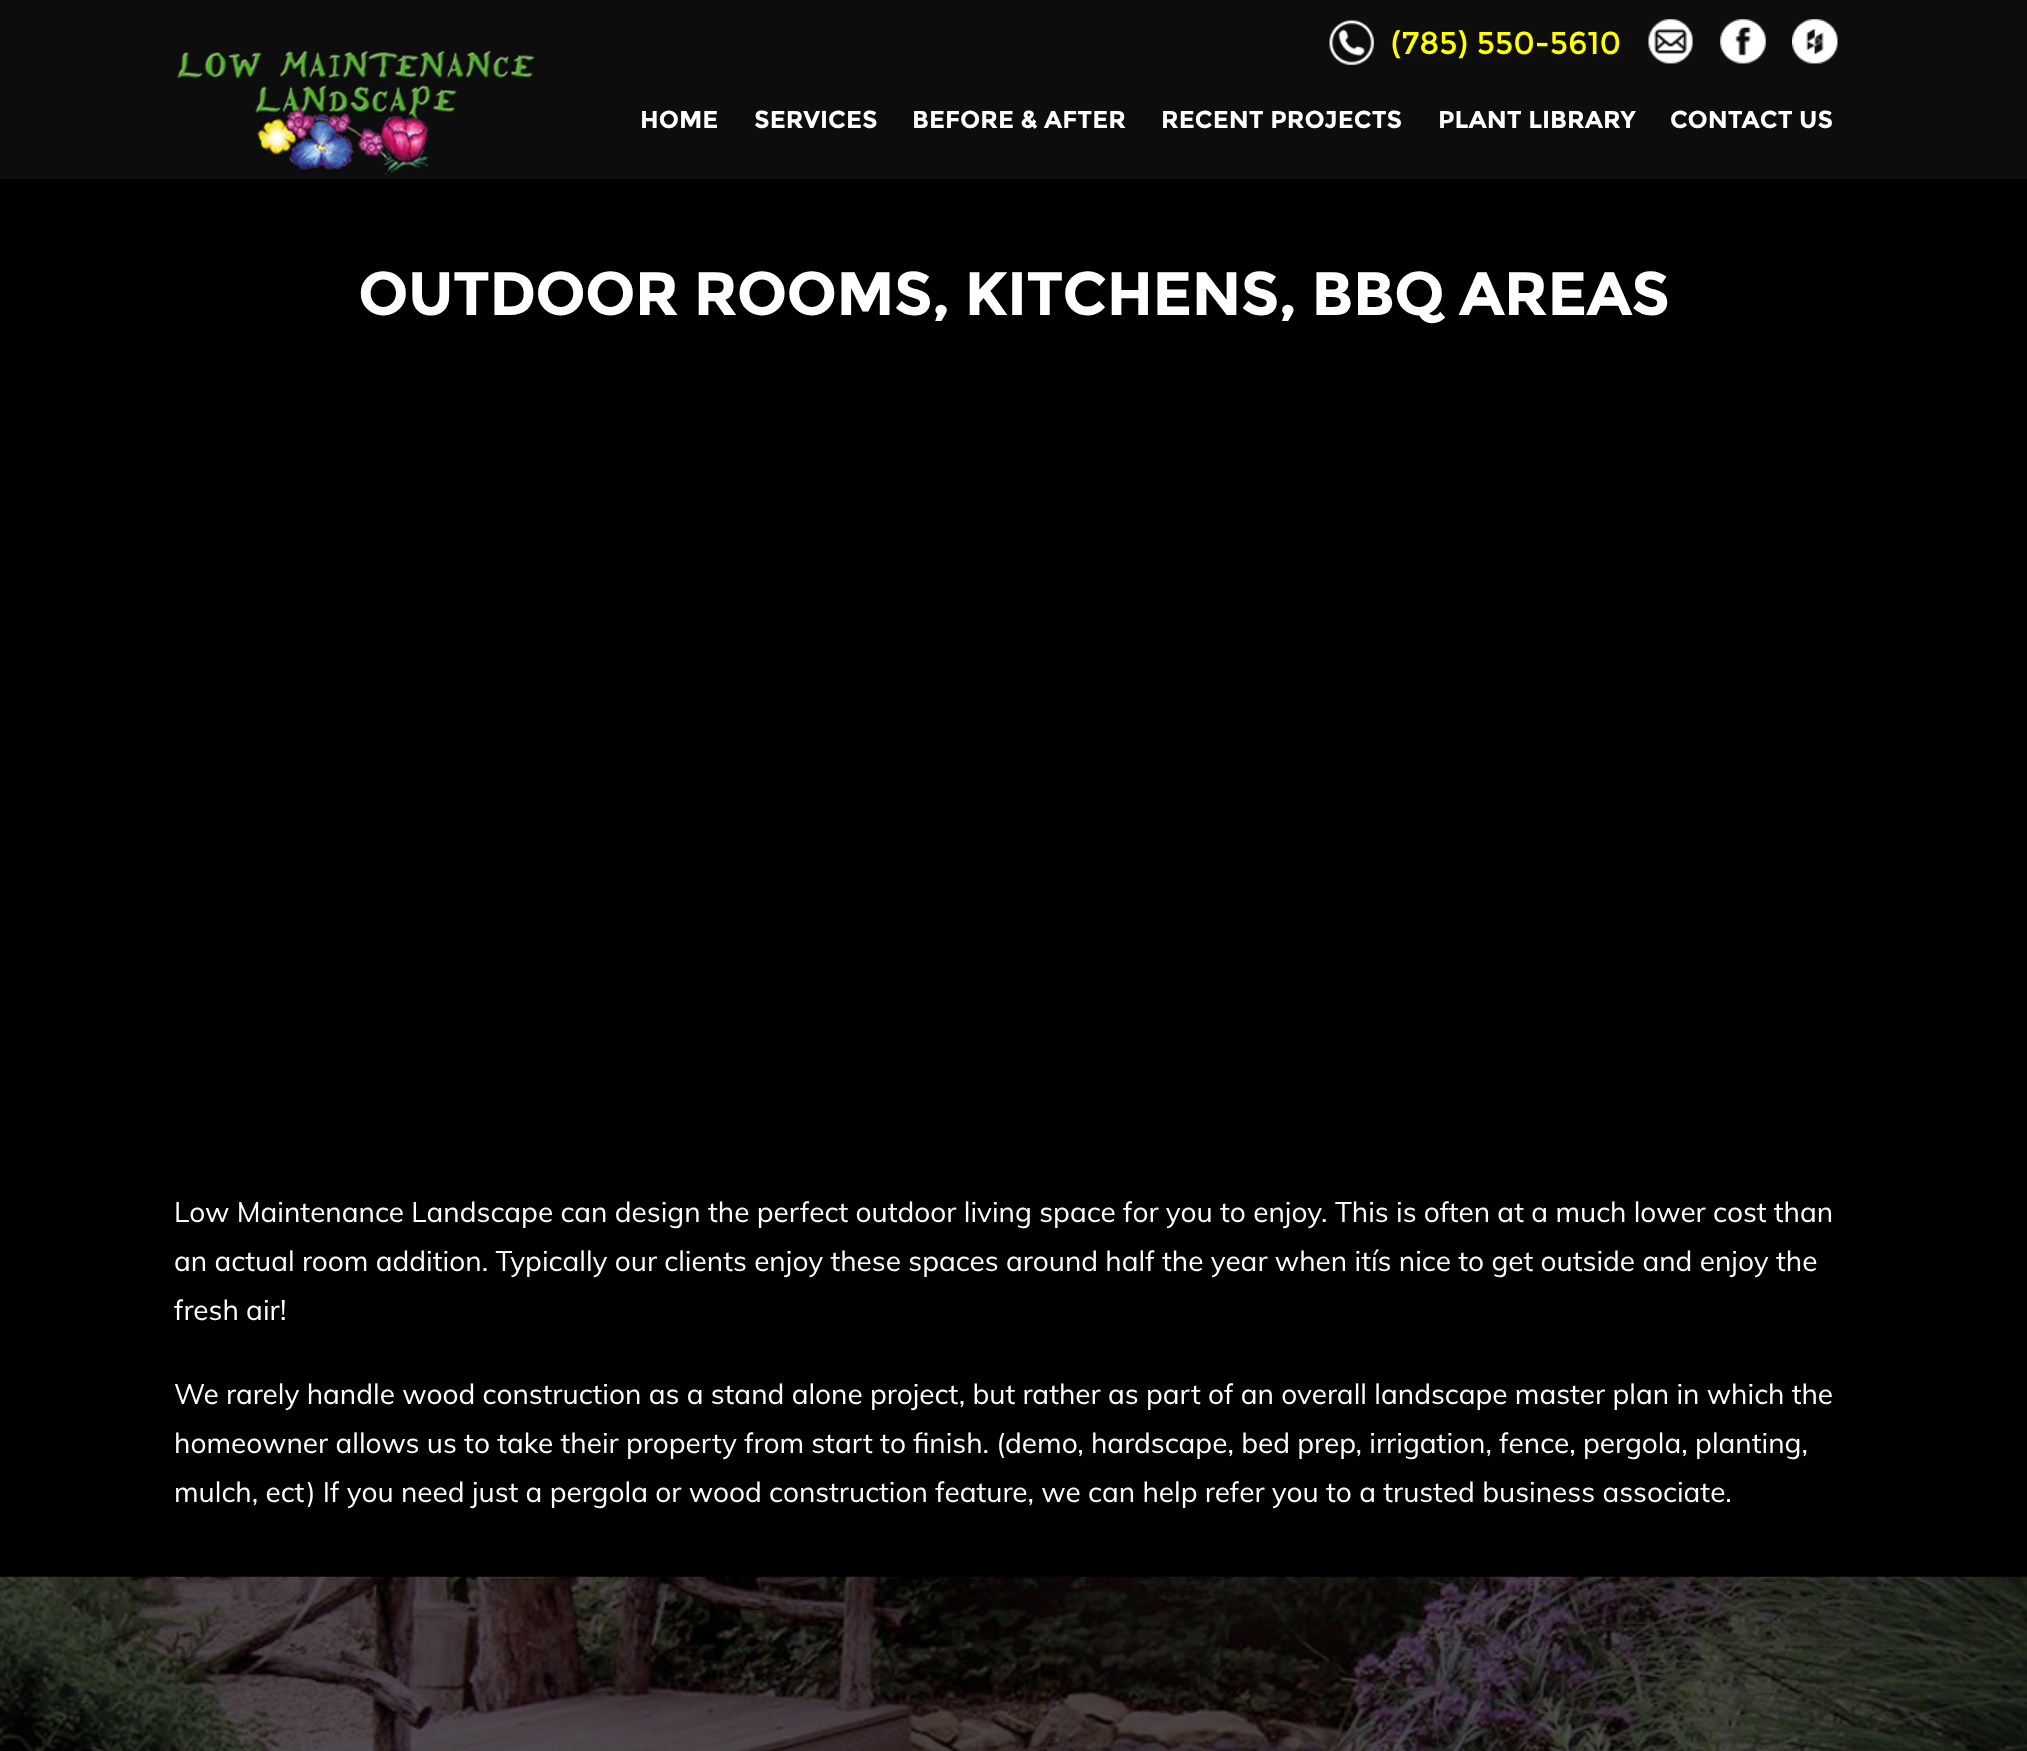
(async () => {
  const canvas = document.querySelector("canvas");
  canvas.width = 2027;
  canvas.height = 1751;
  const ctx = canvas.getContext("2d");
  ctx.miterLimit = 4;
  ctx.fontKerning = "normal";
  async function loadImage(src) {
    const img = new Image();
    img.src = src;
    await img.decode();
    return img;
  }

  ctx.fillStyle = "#000000";
  ctx.fillRect(0, 0, 2027, 1751);
  ctx.fillStyle = "#0d0d0d";
  ctx.fillRect(0, 0, 2027, 179);
  ctx.drawImage(await loadImage("img/1.png"), 177, 50, 358, 125);
  ctx.drawImage(await loadImage("img/2.png"), 1329, 20, 45, 45);
  ctx.drawImage(await loadImage("img/3.png"), 1648, 19, 45, 45);
  ctx.drawImage(await loadImage("img/4.png"), 1720, 19, 46, 45);
  ctx.drawImage(await loadImage("img/5.png"), 1792, 19, 46, 45);
  ctx.drawImage(await loadImage("img/6.png"), 0, 1576, 2027, 175);
  ctx.font = "31.5px Montserrat";
  ctx.fillStyle = "#ffff00";
  ctx.fillText("(785) 550-5610", 1391, 54);
  ctx.font = "bold 24.5px Montserrat";
  ctx.fillStyle = "#ffffff";
  for (const [text, x, y] of [
    ["HOME", 640, 128],
    ["SERVICES", 754, 128],
    ["BEFORE & AFTER", 912, 128],
    ["RECENT PROJECTS", 1161, 128],
    ["PLANT LIBRARY", 1438, 128],
    ["CONTACT US", 1670, 128],
  ]) {
    ctx.fillText(text, x, y);
  }
  ctx.letterSpacing = "-0.9px";
  ctx.font = "bold 61.25px Montserrat";
  ctx.fillText("OUTDOOR ROOMS, KITCHENS, BBQ AREAS", 358, 315);
  ctx.letterSpacing = "0px";
  ctx.font = "28px Muli";
  for (const [text, x, y] of [
    ["Low Maintenance Landscape can design the perfect outdoor living space for you to enjoy. This is often at a much lower cost than", 174, 1222],
    ["an actual room addition. Typically our clients enjoy these spaces around half the year when itís nice to get outside and enjoy the", 174, 1271],
    ["fresh air!", 174, 1320],
    ["We rarely handle wood construction as a stand alone project, but rather as part of an overall landscape master plan in which the", 174, 1404],
    ["homeowner allows us to take their property from start to finish. (demo, hardscape, bed prep, irrigation, fence, pergola, planting,", 174, 1453],
    ["mulch, ect) If you need just a pergola or wood construction feature, we can help refer you to a trusted business associate.", 174, 1502],
  ]) {
    ctx.fillText(text, x, y);
  }
})();
